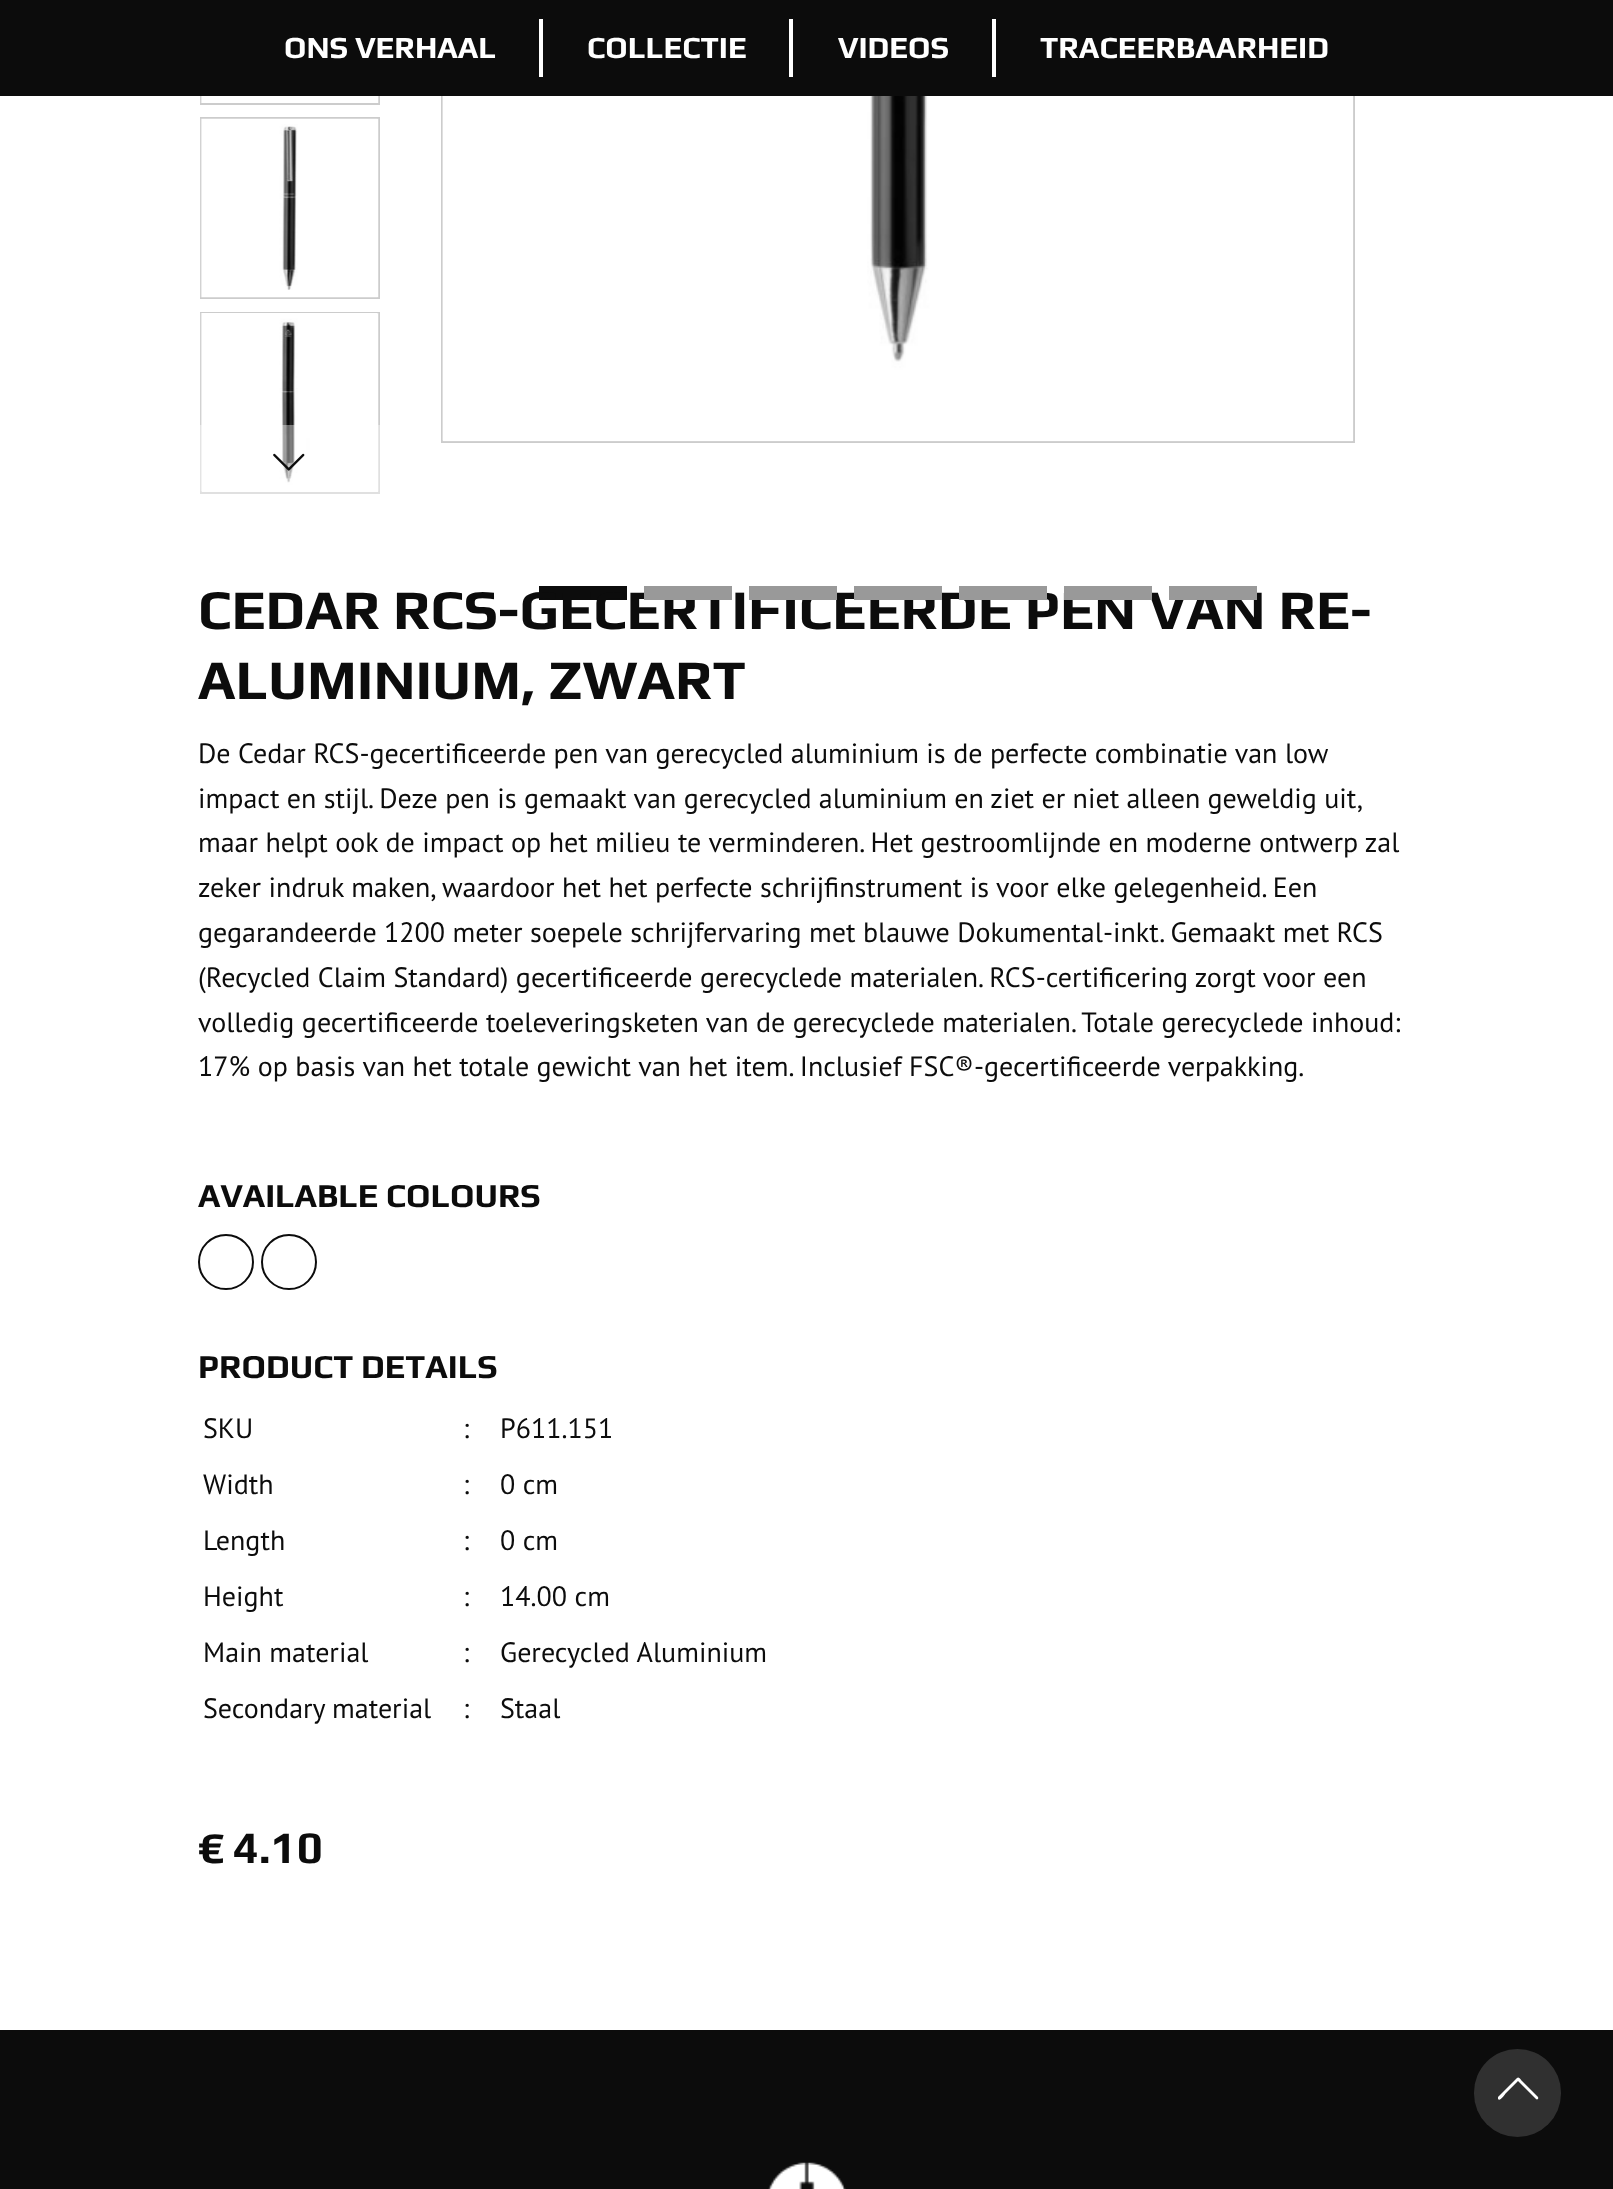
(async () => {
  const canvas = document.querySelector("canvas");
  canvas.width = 1613;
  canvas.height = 2189;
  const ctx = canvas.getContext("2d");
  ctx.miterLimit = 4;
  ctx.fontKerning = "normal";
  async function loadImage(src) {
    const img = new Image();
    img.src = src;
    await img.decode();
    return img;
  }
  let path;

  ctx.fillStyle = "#ffffff";
  ctx.fillRect(0, 0, 1613, 2189);
  ctx.strokeStyle = "#cccccc";
  ctx.lineWidth = 2;
  ctx.strokeRect(201, -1, 178, 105);
  ctx.strokeRect(442, -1, 912, 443);
  for (const [x, y, w, h, color] of [
    [0, 0, 1613, 96, "#0c0c0c"],
    [539, 19, 4, 58, "#ffffff"],
    [789, 19, 4, 58, "#ffffff"],
    [992, 19, 4, 58, "#ffffff"],
  ]) {
    ctx.fillStyle = color;
    ctx.fillRect(x, y, w, h);
  }
  ctx.drawImage(await loadImage("img/1.png"), 200, 96, 179, 7);
  ctx.strokeRect(201, 118, 178, 180);
  ctx.drawImage(await loadImage("img/2.png"), 200, 118, 179, 180);
  ctx.strokeRect(201, 313, 178, 180);
  ctx.drawImage(await loadImage("img/3.png"), 200, 313, 179, 179);
  ctx.fillStyle = "rgba(255, 255, 255, 0.4)";
  ctx.fillRect(200, 425, 180, 69);
  ctx.drawImage(await loadImage("img/4.png"), 273, 453, 32, 18);
  ctx.drawImage(await loadImage("img/5.png"), 442, 96, 912, 346);
  ctx.fillStyle = "#0c0c0c";
  ctx.fillRect(539, 586, 88, 14);
  ctx.beginPath();
  ctx.arc(226, 1262, 27, 0, Math.PI * 2);
  ctx.strokeStyle = "#0c0c0c";
  ctx.stroke();
  ctx.beginPath();
  ctx.arc(289, 1262, 27, 0, Math.PI * 2);
  ctx.stroke();
  ctx.fillRect(0, 2030, 1613, 159);
  ctx.drawImage(await loadImage("img/6.png"), 768, 2162, 78, 27);
  ctx.fillStyle = "#303030";
  ctx.beginPath();
  ctx.roundRect(1474, 2049, 87, 88, 43.5);
  ctx.fill();
  ctx.fillStyle = "#ffffff";
  path = new Path2D("M1517 2078C1519 2076 1521 2080 1522 2081L1538 2097C1539 2099 1537 2100 1536 2099L1518 2081L1506 2093C1505 2094 1500 2102 1498 2099V2097Z");
  ctx.fill(path);
  ctx.font = "bold 30.75px Play";
  for (const [text, x, y] of [
    ["ONS VERHAAL", 284, 58],
    ["COLLECTIE", 587, 58],
    ["VIDEOS", 838, 58],
    ["TRACEERBAARHEID", 1040, 58],
  ]) {
    ctx.fillText(text, x, y);
  }
  ctx.font = "bold 56px Play";
  ctx.fillStyle = "#0c0c0c";
  ctx.fillText("CEDAR RCS-GECERTIFICEERDE PEN VAN RE-", 198, 629);
  for (const [x, y, w, h, color] of [
    [1169, 586, 88, 14, "#999999"],
    [1064, 586, 88, 14, "#999999"],
    [959, 586, 88, 14, "#999999"],
    [854, 586, 88, 14, "#999999"],
    [749, 586, 88, 14, "#999999"],
    [644, 586, 88, 14, "#999999"],
  ]) {
    ctx.fillStyle = color;
    ctx.fillRect(x, y, w, h);
  }
  ctx.fillStyle = "#0c0c0c";
  ctx.fillText("ALUMINIUM, ZWART", 198, 699);
  ctx.font = "28px PT Sans";
  ctx.fillText("De Cedar RCS-gecertificeerde pen van gerecycled aluminium is de perfecte combinatie van low", 198, 763);
  ctx.wordSpacing = "-0.1px";
  ctx.fillText("impact en stijl. Deze pen is gemaakt van gerecycled aluminium en ziet er niet alleen geweldig uit,", 198, 808);
  ctx.wordSpacing = "0px";
  for (const [text, x, y] of [
    ["maar helpt ook de impact op het milieu te verminderen. Het gestroomlijnde en moderne ontwerp zal", 198, 852],
    ["zeker indruk maken, waardoor het het perfecte schrijfinstrument is voor elke gelegenheid. Een", 198, 897],
    ["gegarandeerde 1200 meter soepele schrijfervaring met blauwe Dokumental-inkt. Gemaakt met RCS", 198, 942],
    ["(Recycled Claim Standard) gecertificeerde gerecyclede materialen. RCS-certificering zorgt voor een", 198, 987],
    ["volledig gecertificeerde toeleveringsketen van de gerecyclede materialen. Totale gerecyclede inhoud:", 198, 1032],
    ["17% op basis van het totale gewicht van het item. Inclusief FSC®-gecertificeerde verpakking.", 198, 1076],
  ]) {
    ctx.fillText(text, x, y);
  }
  ctx.font = "bold 33.6px Play";
  ctx.fillText("AVAILABLE COLOURS", 198, 1207);
  ctx.fillText("PRODUCT DETAILS", 198, 1378);
  ctx.font = "28px PT Sans";
  for (const [text, x, y] of [
    ["SKU", 203, 1438],
    [":", 463, 1438],
    ["P611.151", 500, 1438],
    ["Width", 203, 1494],
    [":", 463, 1494],
    ["0 cm", 500, 1494],
    ["Length", 203, 1550],
    [":", 463, 1550],
    ["0 cm", 500, 1550],
    ["Height", 203, 1606],
    [":", 463, 1606],
    ["14.00 cm", 500, 1606],
    ["Main material", 203, 1662],
    [":", 463, 1662],
    ["Gerecycled Aluminium", 500, 1662],
    ["Secondary material", 203, 1718],
    [":", 463, 1718],
    ["Staal", 500, 1718],
  ]) {
    ctx.fillText(text, x, y);
  }
  ctx.font = "bold 45px Play";
  ctx.fillText("€", 198, 1863);
  ctx.fillText("4.10", 233, 1863);
})();
